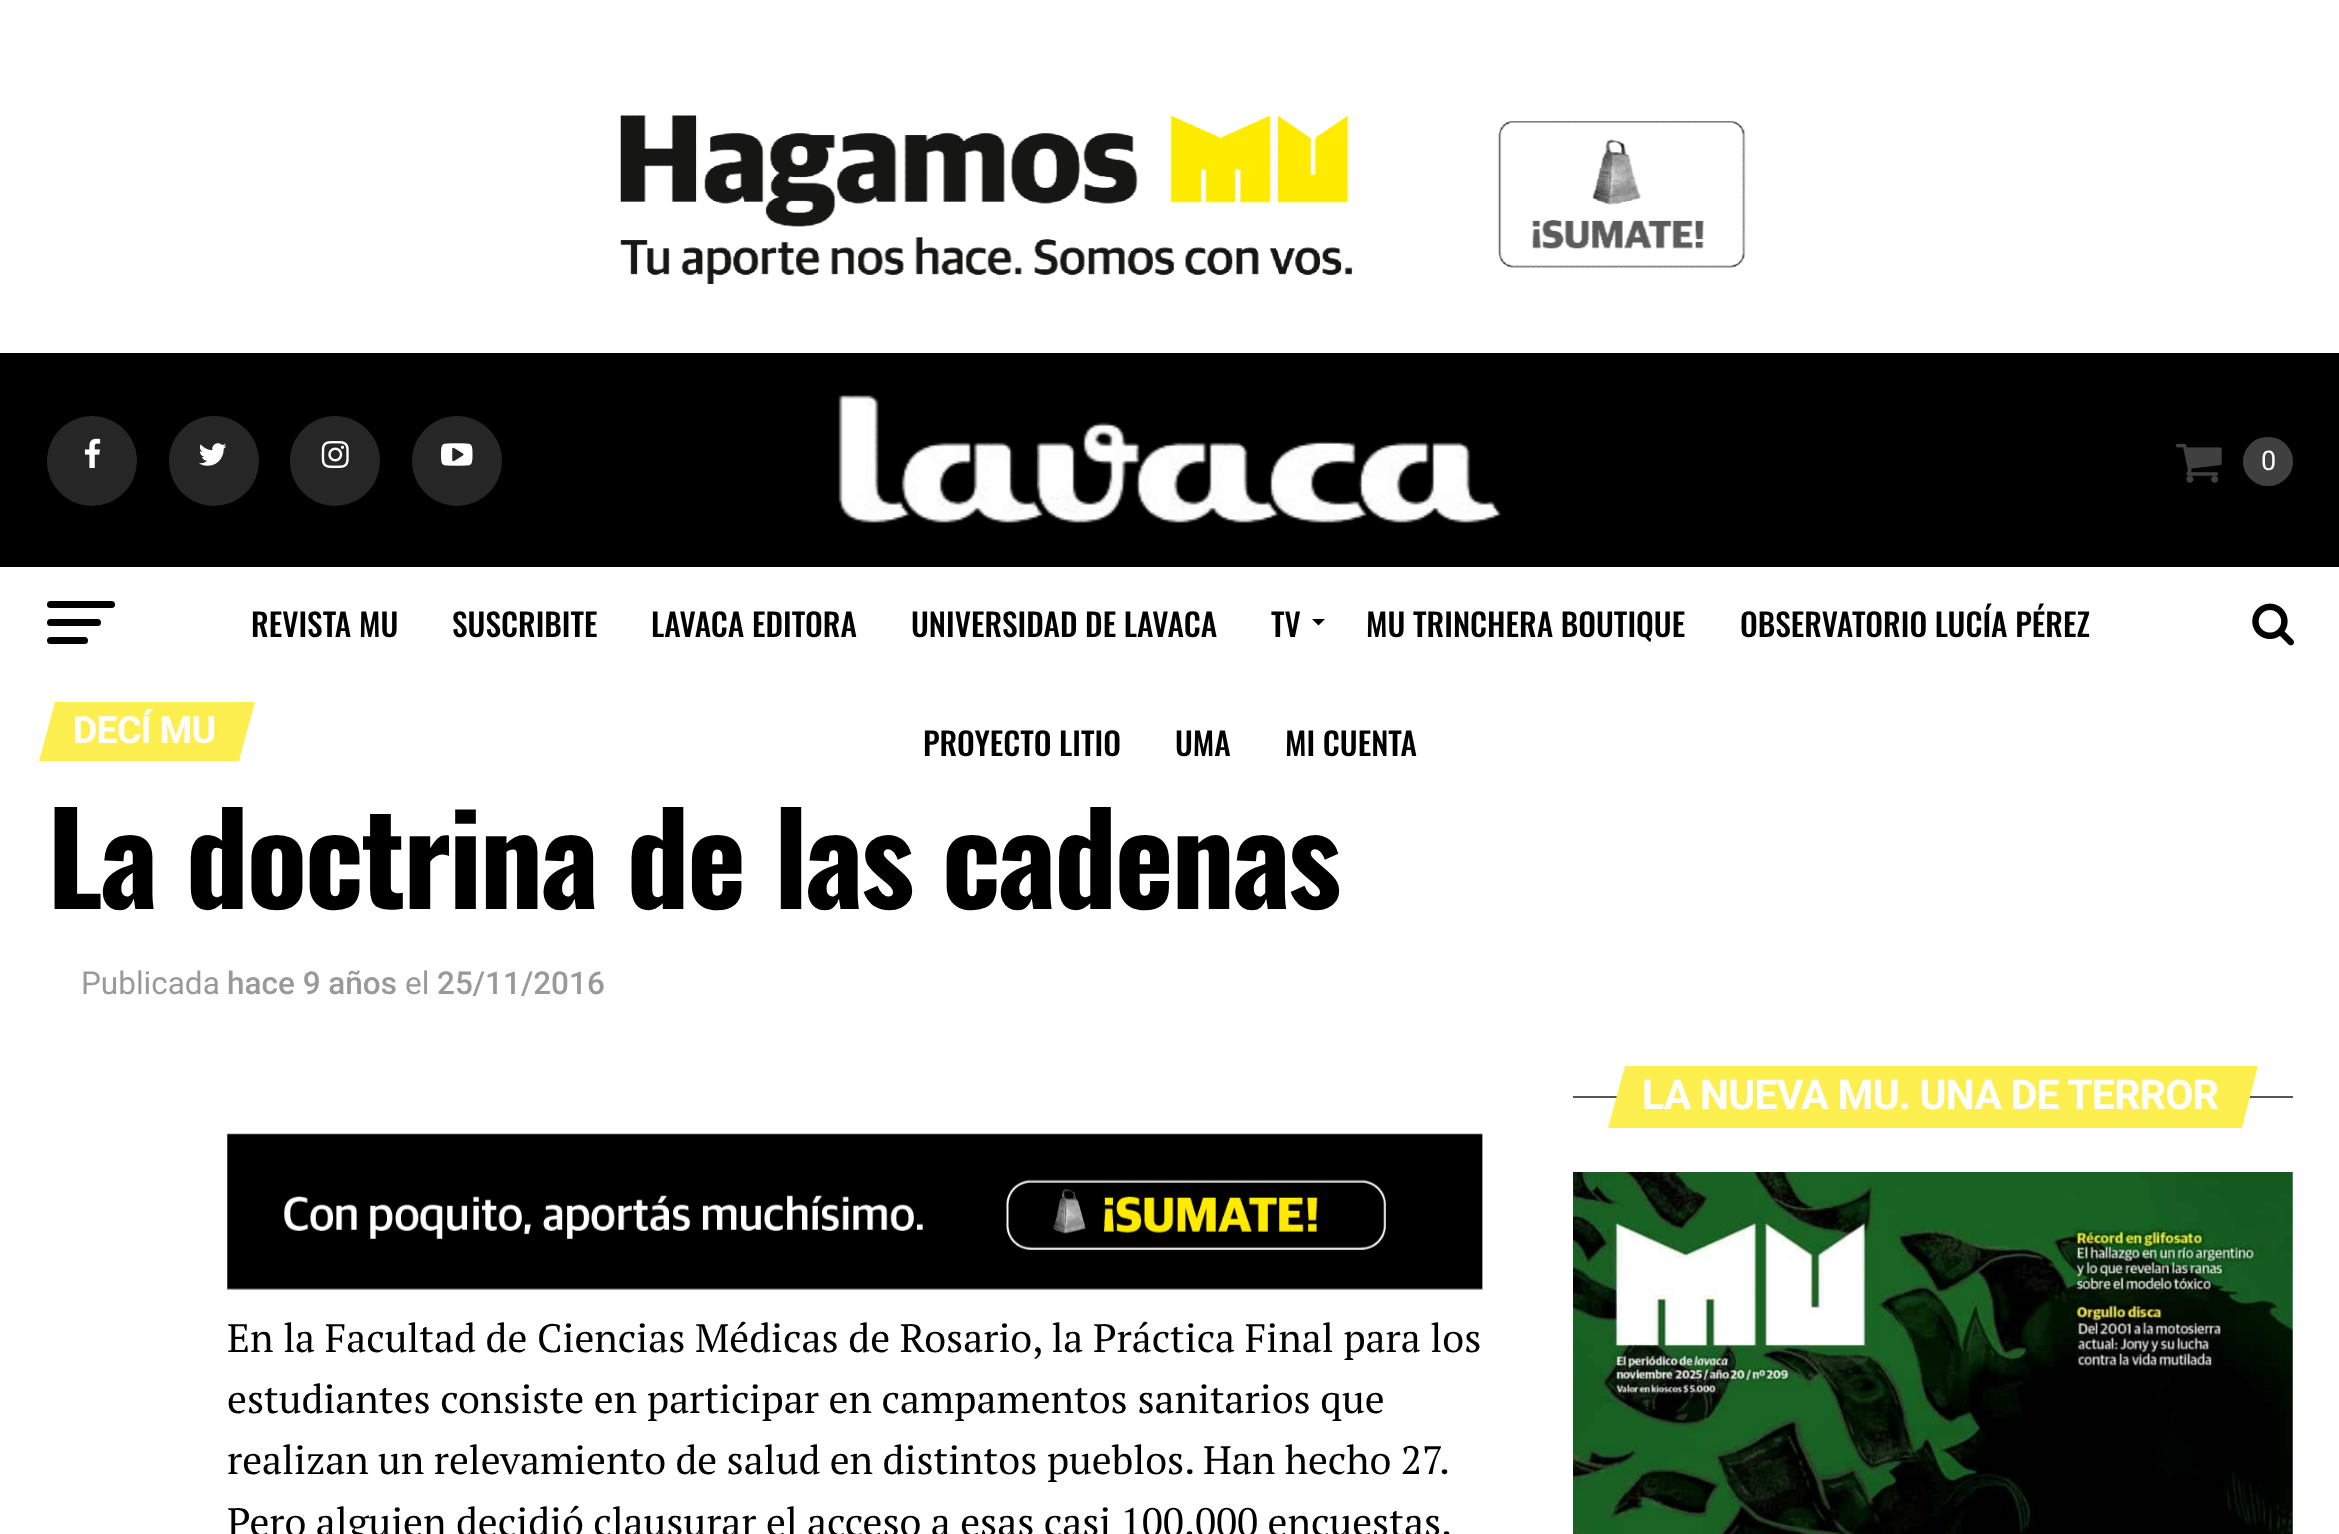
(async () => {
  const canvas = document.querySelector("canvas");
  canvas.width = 2339;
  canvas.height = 1534;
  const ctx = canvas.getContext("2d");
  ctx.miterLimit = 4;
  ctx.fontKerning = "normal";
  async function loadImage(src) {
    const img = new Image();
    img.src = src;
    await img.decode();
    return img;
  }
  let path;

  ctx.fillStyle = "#ffffff";
  ctx.fillRect(0, 0, 2339, 1534);
  ctx.drawImage(await loadImage("img/1.png"), 620, 115, 1126, 169);
  ctx.fillStyle = "#000000";
  ctx.fillRect(0, 353, 2339, 214);
  ctx.fillStyle = "#262626";
  ctx.beginPath();
  ctx.arc(92, 461, 45, 0, Math.PI * 2);
  ctx.fill();
  ctx.drawImage(await loadImage("img/2.png"), 84, 438, 17, 30);
  ctx.beginPath();
  ctx.arc(214, 461, 45, 0, Math.PI * 2);
  ctx.fill();
  ctx.drawImage(await loadImage("img/3.png"), 199, 443, 28, 23);
  ctx.beginPath();
  ctx.arc(335, 461, 45, 0, Math.PI * 2);
  ctx.fill();
  ctx.drawImage(await loadImage("img/4.png"), 321, 441, 28, 27);
  ctx.beginPath();
  ctx.arc(457, 461, 45, 0, Math.PI * 2);
  ctx.fill();
  ctx.drawImage(await loadImage("img/5.png"), 441, 443, 32, 23);
  ctx.drawImage(await loadImage("img/6.png"), 838, 395, 664, 128);
  ctx.drawImage(await loadImage("img/7.png"), 2175, 443, 47, 40);
  ctx.fillStyle = "#404040";
  ctx.beginPath();
  ctx.roundRect(2243, 437, 50, 49, 24.5);
  ctx.fill();
  ctx.fillStyle = "#000000";
  ctx.beginPath();
  ctx.roundRect(47, 601, 68, 7, 3.5);
  ctx.fill();
  ctx.beginPath();
  ctx.roundRect(47, 619, 54, 7, 3.5);
  ctx.fill();
  ctx.beginPath();
  ctx.roundRect(47, 637, 41, 7, 3.5);
  ctx.fill();
  path = new Path2D("M1312 619H1325L1318.5 625.5Z");
  ctx.fill(path);
  ctx.drawImage(await loadImage("img/8.png"), 2252, 603, 42, 43);
  ctx.fillStyle = "#feef51";
  path = new Path2D("M55 702H255L239 761H39Z");
  ctx.fill(path);
  ctx.fillStyle = "#555555";
  ctx.fillRect(1573, 1096, 720, 2);
  ctx.fillStyle = "#feef51";
  path = new Path2D("M1625 1066H2258L2242 1128H1608Z");
  ctx.fill(path);
  ctx.drawImage(await loadImage("img/9.png"), 1573, 1172, 720, 362);
  ctx.drawImage(await loadImage("img/10.png"), 227, 1133, 1256, 157);
  ctx.font = "27px Roboto";
  ctx.fillStyle = "#ffffff";
  ctx.fillText("0", 2261, 470);
  ctx.font = "500 31.5px Oswald";
  ctx.fillStyle = "#000000";
  for (const [text, x, y] of [
    ["REVISTA MU", 251, 637],
    ["SUSCRIBITE", 452, 637],
    ["LAVACA EDITORA", 651, 637],
    ["UNIVERSIDAD DE LAVACA", 911, 637],
    ["TV", 1271, 637],
    ["MU TRINCHERA BOUTIQUE", 1366, 637],
    ["OBSERVATORIO LUCÍA PÉREZ", 1740, 637],
    ["PROYECTO LITIO", 923, 756],
    ["UMA", 1175, 756],
    ["MI CUENTA", 1285, 756],
  ]) {
    ctx.fillText(text, x, y);
  }
  ctx.letterSpacing = "-0.75px";
  ctx.font = "bold 37.5px Roboto";
  ctx.fillStyle = "#ffffff";
  ctx.fillText("DECÍ MU", 73, 743);
  ctx.letterSpacing = "-2.5px";
  ctx.font = "bold 126px Oswald";
  ctx.fillStyle = "#000000";
  ctx.fillText("La doctrina de las cadenas", 47, 909);
  ctx.letterSpacing = "0px";
  ctx.font = "31.5px Roboto";
  ctx.fillStyle = "#999999";
  ctx.fillText("Publicada", 81, 994);
  ctx.font = "500 31.5px Roboto";
  ctx.fillText("hace 9 años", 227, 994);
  ctx.font = "31.5px Roboto";
  ctx.fillText("el", 405, 994);
  ctx.font = "500 31.5px Roboto";
  ctx.fillText("25/11/2016", 437, 994);
  ctx.letterSpacing = "-0.75px";
  ctx.font = "bold 41px Roboto";
  ctx.fillStyle = "#ffffff";
  ctx.fillText("LA NUEVA MU. UNA DE TERROR", 1642, 1109);
  ctx.letterSpacing = "0px";
  ctx.font = "39.6px PT Serif";
  ctx.fillStyle = "#000000";
  ctx.fillText("En la Facultad de Ciencias Médicas de Rosario, la Práctica Final para los", 227, 1352);
  ctx.fillText("estudiantes consiste en participar en campamentos sanitarios que", 227, 1413);
  ctx.wordSpacing = "-0.25px";
  ctx.fillText("realizan un relevamiento de salud en distintos pueblos. Han hecho 27.", 227, 1474);
  ctx.fillText("Pero alguien decidió clausurar el acceso a esas casi 100.000 encuestas.", 227, 1536);
})();
